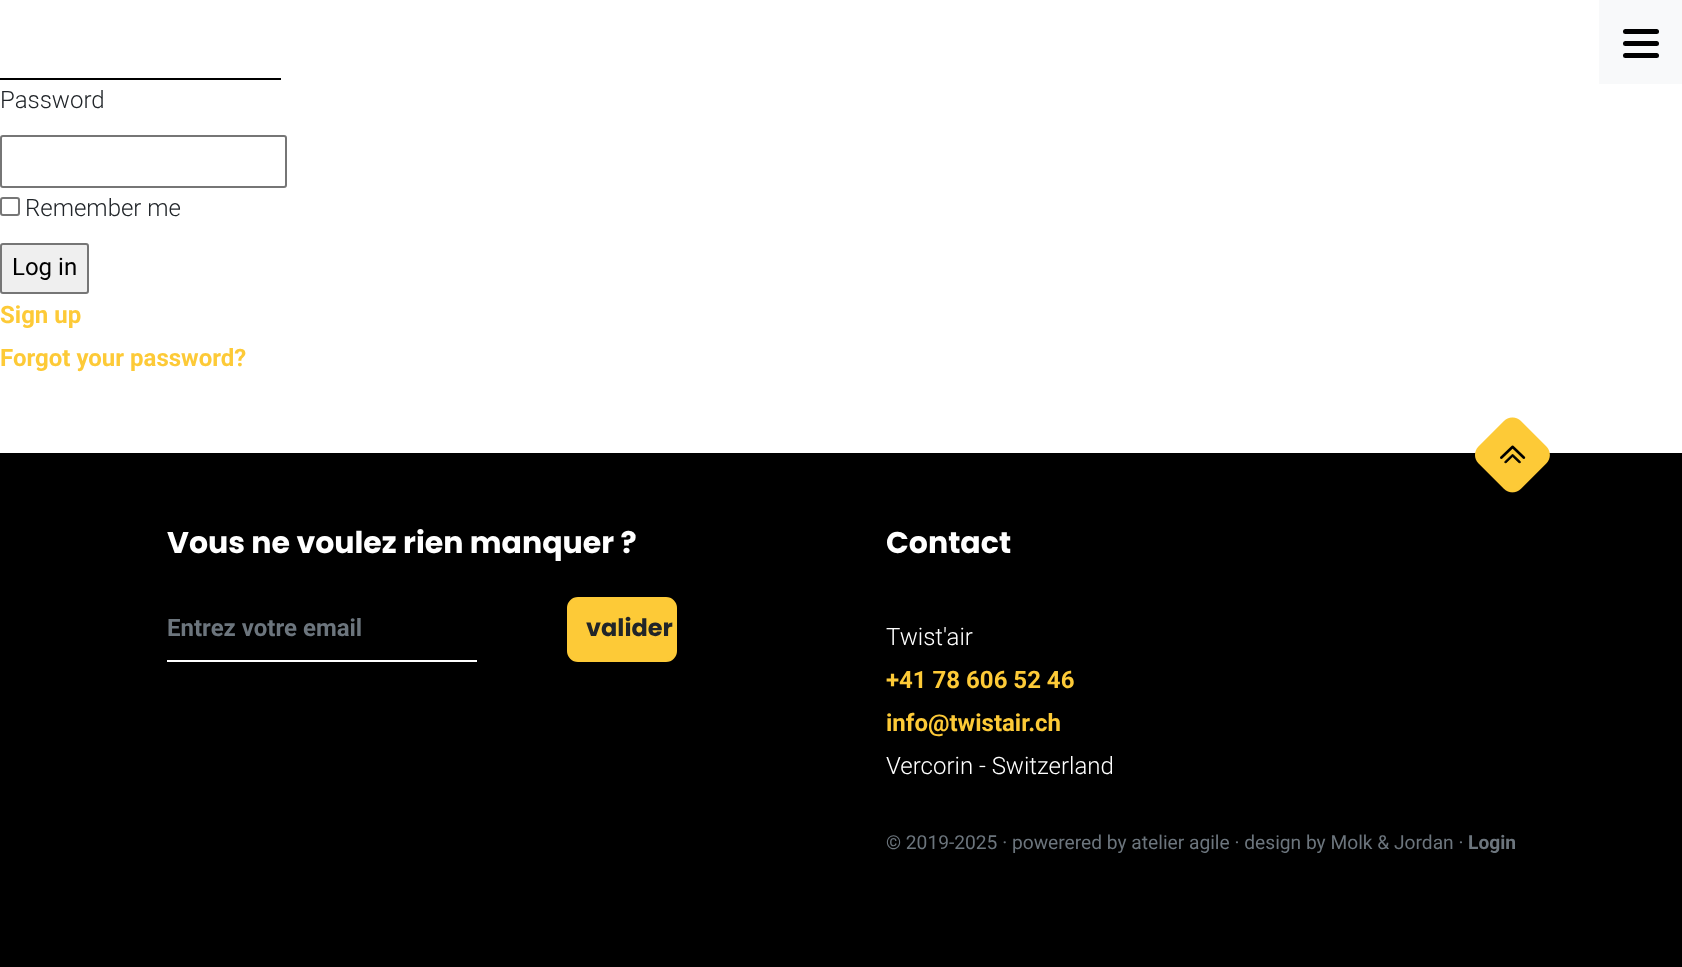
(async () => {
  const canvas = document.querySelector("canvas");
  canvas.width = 1682;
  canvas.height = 967;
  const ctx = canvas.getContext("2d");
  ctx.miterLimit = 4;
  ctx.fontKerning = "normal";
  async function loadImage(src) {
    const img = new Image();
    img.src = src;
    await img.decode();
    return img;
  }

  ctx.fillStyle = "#ffffff";
  ctx.fillRect(0, 0, 1682, 967);
  ctx.fillStyle = "#f8f9fa";
  ctx.fillRect(1599, 0, 83, 84);
  ctx.fillStyle = "#000000";
  ctx.beginPath();
  ctx.roundRect(1623, 41, 36, 5, 2.5);
  ctx.fill();
  ctx.beginPath();
  ctx.roundRect(1623, 29, 36, 5, 2.5);
  ctx.fill();
  ctx.beginPath();
  ctx.roundRect(1623, 53, 36, 5, 2.5);
  ctx.fill();
  ctx.fillRect(0, 78, 281, 2);
  ctx.beginPath();
  ctx.roundRect(1, 136, 285, 51, 2);
  ctx.strokeStyle = "#767676";
  ctx.lineWidth = 2;
  ctx.stroke();
  ctx.beginPath();
  ctx.roundRect(1, 198, 18, 17, 2);
  ctx.stroke();
  ctx.fillStyle = "#efefef";
  ctx.beginPath();
  ctx.roundRect(1, 244, 87, 49, 2);
  ctx.fill();
  ctx.stroke();
  ctx.fillStyle = "#000000";
  ctx.fillRect(0, 453, 1682, 514);
  ctx.drawImage(await loadImage("img/1.png"), 1475, 417, 75, 76);
  ctx.fillStyle = "#ffffff";
  ctx.fillRect(167, 660, 310, 2);
  ctx.fillStyle = "#fdca37";
  ctx.beginPath();
  ctx.roundRect(568, 598, 108, 63, 10);
  ctx.fill();
  ctx.strokeStyle = "#fdca37";
  ctx.stroke();
  ctx.font = "300 24px Roboto";
  ctx.fillStyle = "#212529";
  ctx.fillText("Password", 0, 108);
  ctx.fillText("Remember me", 25, 216);
  ctx.font = "24px Roboto";
  ctx.fillStyle = "#000000";
  ctx.fillText("Log in", 12, 275);
  ctx.font = "bold 24px Roboto";
  ctx.fillStyle = "#fdca37";
  ctx.fillText("Sign up", 0, 323);
  ctx.fillText("Forgot your password?", 0, 366);
  ctx.font = "bold 30px Poppins";
  ctx.fillStyle = "#ffffff";
  ctx.fillText("Vous ne voulez rien manquer ?", 167, 553);
  ctx.font = "bold 24px Roboto";
  ctx.fillStyle = "#6c757d";
  ctx.fillText("Entrez votre email", 167, 636);
  ctx.font = "bold 24px Poppins";
  ctx.fillStyle = "#212529";
  ctx.fillText("valider", 586, 636);
  ctx.font = "bold 30px Poppins";
  ctx.fillStyle = "#ffffff";
  ctx.fillText("Contact", 886, 553);
  ctx.font = "300 24px Roboto";
  ctx.fillText("Twist'air", 886, 645);
  ctx.font = "bold 24px Roboto";
  ctx.fillStyle = "#fdca37";
  ctx.fillText("+41 78 606 52 46", 886, 688);
  ctx.fillText("info@twistair.ch", 886, 731);
  ctx.font = "300 24px Roboto";
  ctx.fillStyle = "#ffffff";
  ctx.fillText("Vercorin - Switzerland", 886, 774);
  ctx.font = "19.2px Roboto";
  ctx.fillStyle = "#6c757d";
  ctx.fillText("© 2019-2025 · powerered by atelier agile · design by Molk & Jordan ·", 886, 849);
  ctx.font = "bold 19.2px Roboto";
  ctx.fillText("Login", 1468, 849);
})();
